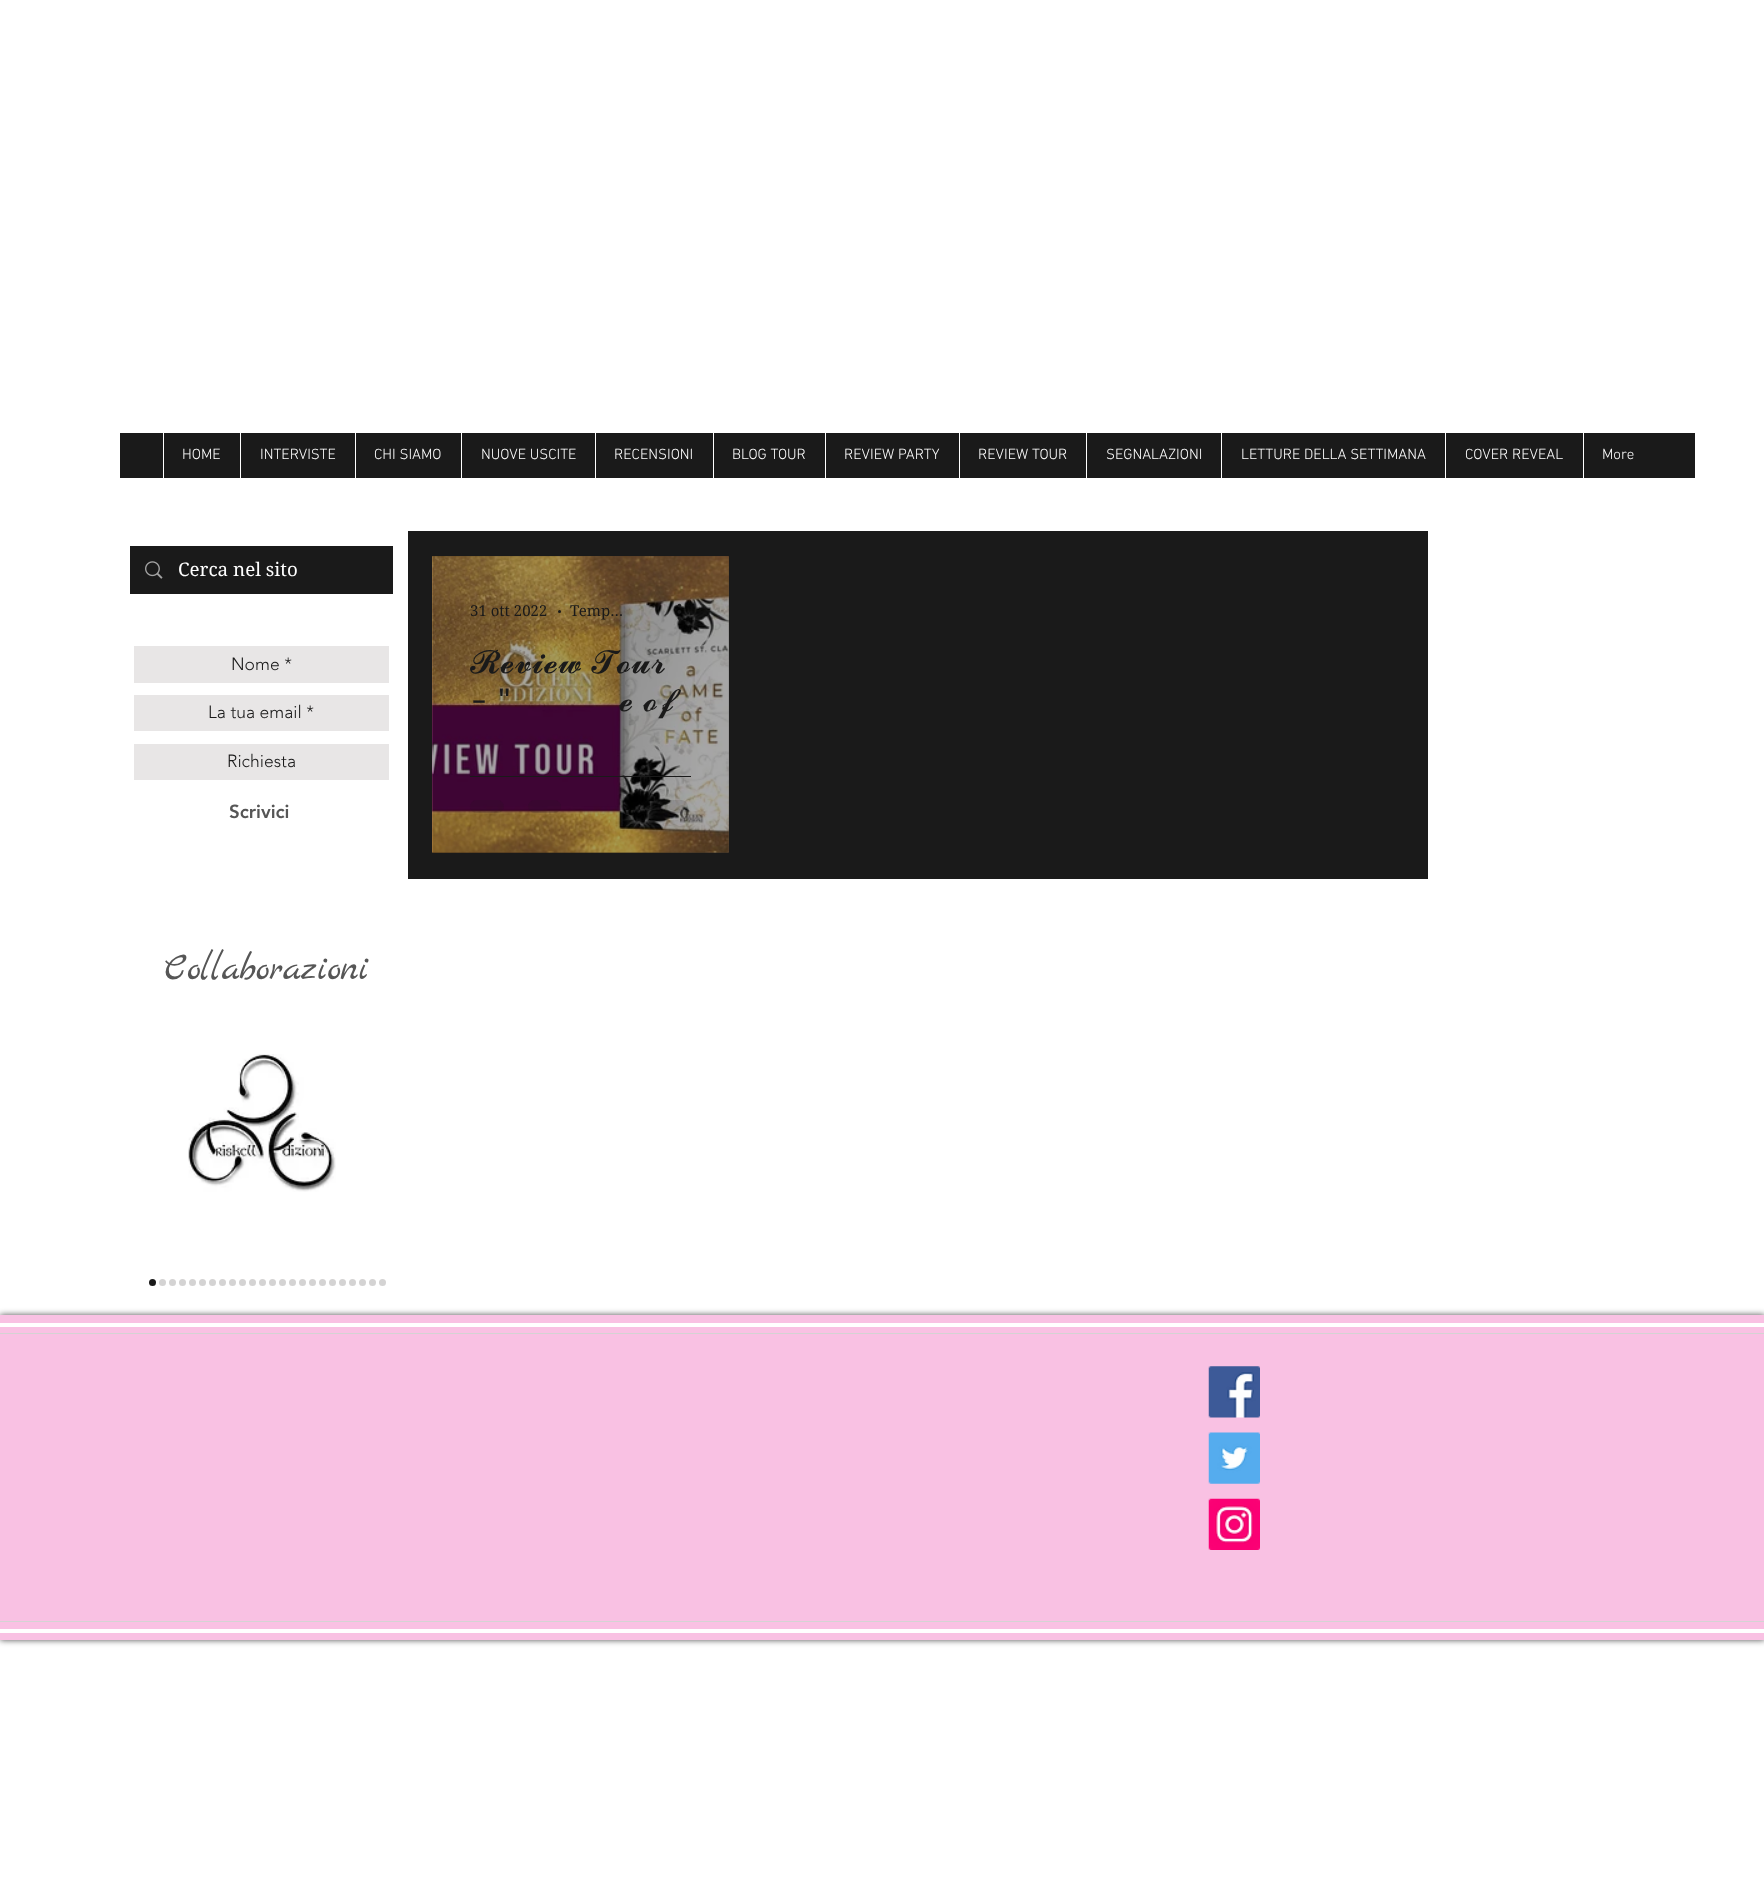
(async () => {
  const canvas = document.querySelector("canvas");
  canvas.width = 1764;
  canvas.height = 1891;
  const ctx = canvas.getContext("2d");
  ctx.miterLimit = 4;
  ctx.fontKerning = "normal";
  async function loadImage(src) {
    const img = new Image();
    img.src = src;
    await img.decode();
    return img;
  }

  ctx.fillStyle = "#ffffff";
  ctx.fillRect(0, 0, 1764, 1891);
  for (const [x, y, w, h, color] of [
    [120, 433, 1575, 45, "#1a1a1a"],
    [163, 433, 1, 45, "#ffffff"],
    [240, 433, 1, 45, "#ffffff"],
    [355, 433, 1, 45, "#ffffff"],
    [461, 433, 1, 45, "#ffffff"],
    [595, 433, 1, 45, "#ffffff"],
    [713, 433, 1, 45, "#ffffff"],
    [825, 433, 1, 45, "#ffffff"],
    [959, 433, 1, 45, "#ffffff"],
    [1086, 433, 1, 45, "#ffffff"],
    [1221, 433, 1, 45, "#ffffff"],
    [1445, 433, 1, 45, "#ffffff"],
    [1583, 433, 1, 45, "#ffffff"],
    [130, 546, 263, 48, "#1a1a1a"],
  ]) {
    ctx.fillStyle = color;
    ctx.fillRect(x, y, w, h);
  }
  ctx.drawImage(await loadImage("img/1.png"), 145, 561, 18, 18);
  for (const [x, y, w, h, color] of [
    [134, 646, 255, 37, "#e8e6e6"],
    [134, 695, 255, 36, "#e8e6e6"],
    [134, 744, 255, 36, "#e8e6e6"],
  ]) {
    ctx.fillStyle = color;
    ctx.fillRect(x, y, w, h);
  }
  ctx.drawImage(await loadImage("img/2.png"), 188, 1054, 148, 138);
  ctx.fillStyle = "#1a1a1a";
  ctx.beginPath();
  ctx.arc(152.5, 1282.5, 3.5, 0, Math.PI * 2);
  ctx.fill();
  ctx.fillStyle = "#d4d3d3";
  ctx.beginPath();
  ctx.arc(162.5, 1282.5, 3.5, 0, Math.PI * 2);
  ctx.fill();
  ctx.beginPath();
  ctx.arc(172.5, 1282.5, 3.5, 0, Math.PI * 2);
  ctx.fill();
  ctx.beginPath();
  ctx.arc(182.5, 1282.5, 3.5, 0, Math.PI * 2);
  ctx.fill();
  ctx.beginPath();
  ctx.arc(192.5, 1282.5, 3.5, 0, Math.PI * 2);
  ctx.fill();
  ctx.beginPath();
  ctx.arc(202.5, 1282.5, 3.5, 0, Math.PI * 2);
  ctx.fill();
  ctx.beginPath();
  ctx.arc(212.5, 1282.5, 3.5, 0, Math.PI * 2);
  ctx.fill();
  ctx.beginPath();
  ctx.arc(222.5, 1282.5, 3.5, 0, Math.PI * 2);
  ctx.fill();
  ctx.beginPath();
  ctx.arc(232.5, 1282.5, 3.5, 0, Math.PI * 2);
  ctx.fill();
  ctx.beginPath();
  ctx.arc(242.5, 1282.5, 3.5, 0, Math.PI * 2);
  ctx.fill();
  ctx.beginPath();
  ctx.arc(252.5, 1282.5, 3.5, 0, Math.PI * 2);
  ctx.fill();
  ctx.beginPath();
  ctx.arc(262.5, 1282.5, 3.5, 0, Math.PI * 2);
  ctx.fill();
  ctx.beginPath();
  ctx.arc(272.5, 1282.5, 3.5, 0, Math.PI * 2);
  ctx.fill();
  ctx.beginPath();
  ctx.arc(282.5, 1282.5, 3.5, 0, Math.PI * 2);
  ctx.fill();
  ctx.beginPath();
  ctx.arc(292.5, 1282.5, 3.5, 0, Math.PI * 2);
  ctx.fill();
  ctx.beginPath();
  ctx.arc(302.5, 1282.5, 3.5, 0, Math.PI * 2);
  ctx.fill();
  ctx.beginPath();
  ctx.arc(312.5, 1282.5, 3.5, 0, Math.PI * 2);
  ctx.fill();
  ctx.beginPath();
  ctx.arc(322.5, 1282.5, 3.5, 0, Math.PI * 2);
  ctx.fill();
  ctx.beginPath();
  ctx.arc(332.5, 1282.5, 3.5, 0, Math.PI * 2);
  ctx.fill();
  ctx.beginPath();
  ctx.arc(342.5, 1282.5, 3.5, 0, Math.PI * 2);
  ctx.fill();
  ctx.beginPath();
  ctx.arc(352.5, 1282.5, 3.5, 0, Math.PI * 2);
  ctx.fill();
  ctx.beginPath();
  ctx.arc(362.5, 1282.5, 3.5, 0, Math.PI * 2);
  ctx.fill();
  ctx.beginPath();
  ctx.arc(372.5, 1282.5, 3.5, 0, Math.PI * 2);
  ctx.fill();
  ctx.beginPath();
  ctx.arc(382.5, 1282.5, 3.5, 0, Math.PI * 2);
  ctx.fill();
  ctx.fillStyle = "#1a1a1a";
  ctx.fillRect(408, 531, 1020, 348);
  ctx.fillStyle = "#111111";
  ctx.fillRect(433, 556, 296, 297);
  ctx.drawImage(await loadImage("img/3.png"), 432, 556, 297, 297);
  ctx.drawImage(await loadImage("img/4.png"), 432, 556, 297, 297);
  ctx.fillStyle = "#1a1a1a";
  ctx.beginPath();
  ctx.arc(559.5, 611.5, 1.5, 0, Math.PI * 2);
  ctx.fill();
  ctx.drawImage(await loadImage("img/5.png"), 677, 603, 5, 17);
  ctx.fillRect(470, 776, 221, 1);
  ctx.fillStyle = "rgba(26, 26, 26, 0.12)";
  ctx.beginPath();
  ctx.roundRect(470, 800, 34, 13, 6.5);
  ctx.fill();
  ctx.beginPath();
  ctx.roundRect(528, 800, 33, 13, 6.5);
  ctx.fill();
  ctx.beginPath();
  ctx.roundRect(641, 800, 47, 13, 6.5);
  ctx.fill();
  ctx.fillStyle = "rgba(0, 0, 0, 0.7)";
  ctx.filter = "blur(3px)";
  ctx.beginPath();
  ctx.rect(0, 1315, 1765, 325);
  ctx.fill();
  ctx.filter = "none";
  for (const [x, y, w, h, color] of [
    [0, 1315, 1764, 325, "#f9c1e3"],
    [0, 1323, 1764, 4, "#ffffff"],
    [0, 1629, 1764, 4, "#ffffff"],
    [0, 1333, 1764, 1, "#d4d3d3"],
    [0, 1621, 1764, 1, "#d4d3d3"],
  ]) {
    ctx.fillStyle = color;
    ctx.fillRect(x, y, w, h);
  }
  ctx.drawImage(await loadImage("img/6.png"), 1208, 1366, 52, 52);
  ctx.drawImage(await loadImage("img/7.png"), 1208, 1432, 52, 52);
  ctx.drawImage(await loadImage("img/8.png"), 1208, 1498, 52, 52);
  ctx.font = "300 15px 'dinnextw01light'";
  ctx.fillStyle = "#ffffff";
  for (const [text, x, y] of [
    ["HOME", 182, 459],
    ["INTERVISTE", 260, 459],
    ["CHI SIAMO", 374, 459],
    ["NUOVE USCITE", 481, 459],
    ["RECENSIONI", 614, 459],
    ["BLOG TOUR", 732, 459],
    ["REVIEW PARTY", 844, 459],
    ["REVIEW TOUR", 978, 459],
    ["SEGNALAZIONI", 1106, 459],
    ["LETTURE DELLA SETTIMANA", 1241, 459],
    ["COVER REVEAL", 1465, 459],
    ["More", 1602, 459],
  ]) {
    ctx.fillText(text, x, y);
  }
  ctx.font = "18.75px 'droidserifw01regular'";
  ctx.fillText("Cerca nel sito", 178, 576);
  ctx.font = "300 17.5px 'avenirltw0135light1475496'";
  ctx.fillStyle = "#1a1a1a";
  for (const [text, x, y] of [
    ["Nome *", 231, 670],
    ["La tua email *", 208, 718],
    ["Richiesta", 227, 767],
  ]) {
    ctx.fillText(text, x, y);
  }
  ctx.font = "900 18.75px 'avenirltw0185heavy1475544'";
  ctx.fillStyle = "#565656";
  ctx.fillText("Scrivici", 229, 818);
  ctx.font = "38.75px Marck Script";
  ctx.fillText("Collaborazioni", 164, 979);
  ctx.font = "15px 'droidserifw01regular'";
  ctx.fillStyle = "#1a1a1a";
  ctx.fillText("31 ott 2022", 470, 616);
  ctx.fillText("Temp…", 570, 616);
  ctx.wordSpacing = "1px";
  ctx.font = "32.5px FreeSerif";
  ctx.fillText("𝓡𝓮𝓿𝓲𝓮𝔀 𝓣𝓸𝓾𝓻", 470, 673);
  ctx.wordSpacing = "0px";
  ctx.font = "32.5px Spinnaker";
  ctx.fillText("- \"", 470, 711);
  ctx.font = "32.5px FreeSerif";
  ctx.fillText("𝓮", 619, 711);
  ctx.fillText("𝓸𝓯", 643, 711);
})();
